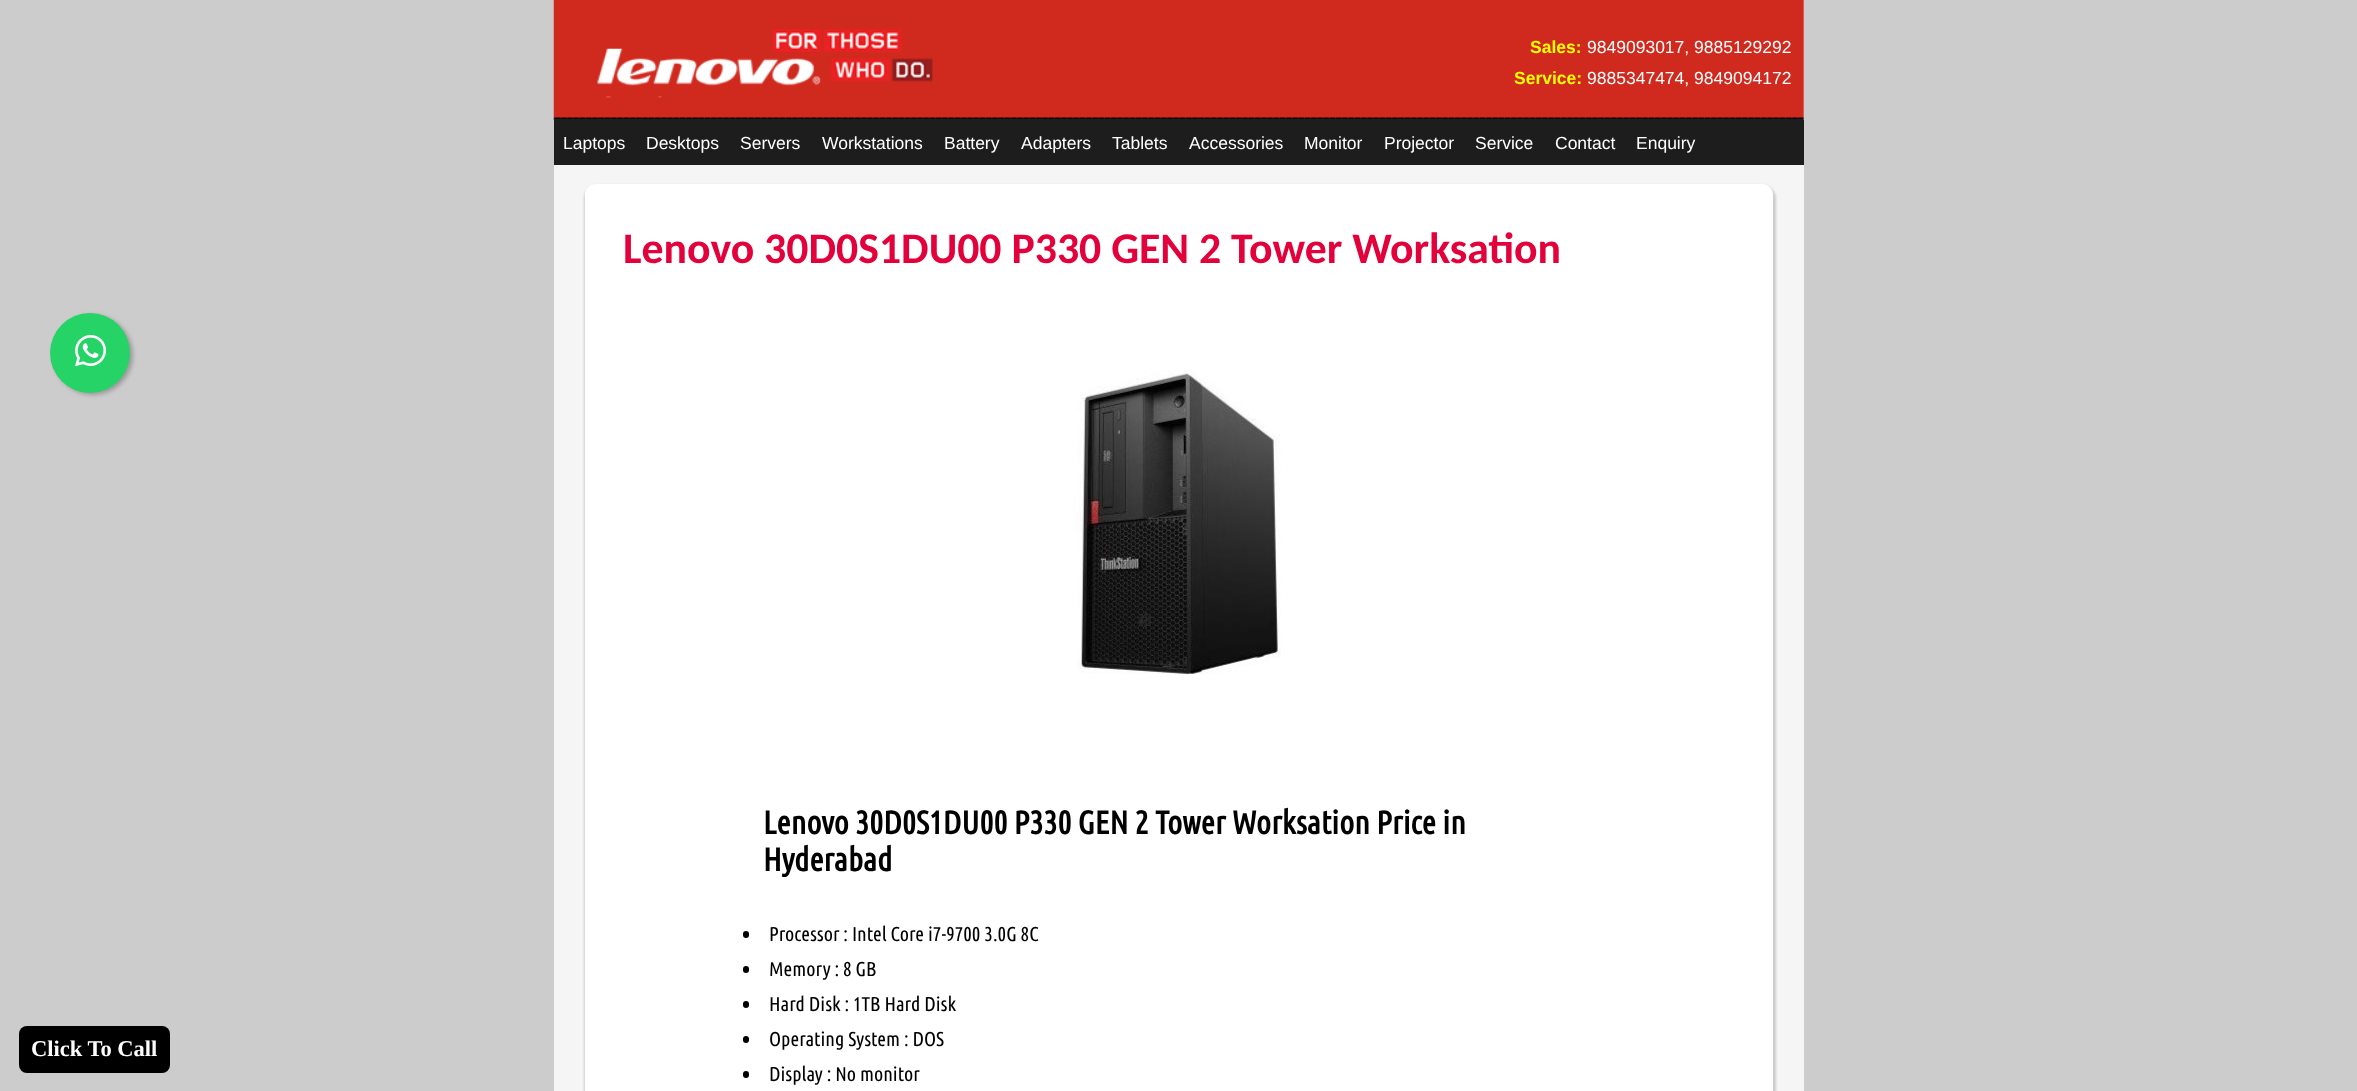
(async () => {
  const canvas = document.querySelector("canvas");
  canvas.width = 2357;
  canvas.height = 1091;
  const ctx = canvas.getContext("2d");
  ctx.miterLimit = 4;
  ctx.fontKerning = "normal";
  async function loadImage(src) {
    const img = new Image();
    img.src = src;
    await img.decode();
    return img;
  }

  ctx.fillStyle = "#cccccc";
  ctx.fillRect(0, 0, 2357, 1091);
  ctx.fillStyle = "#f5f5f5";
  ctx.fillRect(554, 0, 1250, 1091);
  ctx.drawImage(await loadImage("img/1.png"), 553, 0, 1251, 120);
  ctx.drawImage(await loadImage("img/2.png"), 597, 29, 336, 69);
  ctx.fillStyle = "#1e1d1d";
  ctx.fillRect(554, 120, 1250, 45);
  ctx.fillStyle = "#999999";
  ctx.filter = "blur(2px)";
  ctx.beginPath();
  ctx.roundRect(53, 315, 80, 80, 40);
  ctx.fill();
  ctx.filter = "none";
  ctx.fillStyle = "#25d366";
  ctx.beginPath();
  ctx.arc(90, 353, 40, 0, Math.PI * 2);
  ctx.fill();
  ctx.drawImage(await loadImage("img/3.png"), 75, 335, 31, 31);
  ctx.fillStyle = "#cccccc";
  ctx.filter = "blur(1px)";
  ctx.beginPath();
  ctx.roundRect(584, 185, 1192, 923, 14);
  ctx.fill();
  ctx.filter = "none";
  ctx.fillStyle = "#ffffff";
  ctx.beginPath();
  ctx.roundRect(585, 184, 1188, 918, 11);
  ctx.fill();
  ctx.drawImage(await loadImage("img/4.png"), 1073, 370, 208, 304);
  ctx.fillStyle = "#000000";
  ctx.beginPath();
  ctx.roundRect(743, 931, 6, 7, 3);
  ctx.fill();
  ctx.beginPath();
  ctx.roundRect(743, 966, 6, 7, 3);
  ctx.fill();
  ctx.beginPath();
  ctx.roundRect(743, 1001, 6, 7, 3);
  ctx.fill();
  ctx.beginPath();
  ctx.roundRect(743, 1036, 6, 7, 3);
  ctx.fill();
  ctx.beginPath();
  ctx.roundRect(743, 1071, 6, 7, 3);
  ctx.fill();
  ctx.beginPath();
  ctx.roundRect(19, 1026, 151, 47, 8);
  ctx.fill();
  ctx.font = "bold 17.5px Liberation Sans";
  ctx.fillStyle = "#ffff00";
  ctx.fillText("Sales:", 1530, 53);
  ctx.font = "17.5px Liberation Sans";
  ctx.fillStyle = "#ffffff";
  ctx.fillText("9849093017, 9885129292", 1587, 53);
  ctx.font = "bold 17.5px Liberation Sans";
  ctx.fillStyle = "#ffff00";
  ctx.fillText("Service:", 1514, 84);
  ctx.font = "17.5px Liberation Sans";
  ctx.fillStyle = "#ffffff";
  for (const [text, x, y] of [
    ["9885347474, 9849094172", 1587, 84],
    ["Laptops", 563, 149],
    ["Desktops", 646, 149],
    ["Servers", 740, 149],
    ["Workstations", 822, 149],
    ["Battery", 944, 149],
    ["Adapters", 1021, 149],
    ["Tablets", 1112, 149],
    ["Accessories", 1189, 149],
    ["Monitor", 1304, 149],
    ["Projector", 1384, 149],
    ["Service", 1475, 149],
    ["Contact", 1555, 149],
    ["Enquiry", 1636, 149],
  ]) {
    ctx.fillText(text, x, y);
  }
  ctx.font = "bold 43.75px Carlito";
  ctx.fillStyle = "#e2013b";
  ctx.fillText("Lenovo 30D0S1DU00 P330 GEN 2 Tower Worksation", 623, 263);
  ctx.font = "bold 32.5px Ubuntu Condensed";
  ctx.fillStyle = "#000000";
  ctx.fillText("Lenovo 30D0S1DU00 P330 GEN 2 Tower Worksation Price in", 763, 834);
  ctx.fillText("Hyderabad", 763, 871);
  ctx.font = "20px Ubuntu Condensed";
  for (const [text, x, y] of [
    ["Processor : Intel Core i7-9700 3.0G 8C", 769, 941],
    ["Memory : 8 GB", 769, 976],
    ["Hard Disk : 1TB Hard Disk", 769, 1011],
    ["Operating System : DOS", 769, 1046],
    ["Display : No monitor", 769, 1081],
  ]) {
    ctx.fillText(text, x, y);
  }
  ctx.font = "bold 22.5px Liberation Serif";
  ctx.fillStyle = "#ffffff";
  ctx.fillText("Click To Call", 31, 1056);
})();
